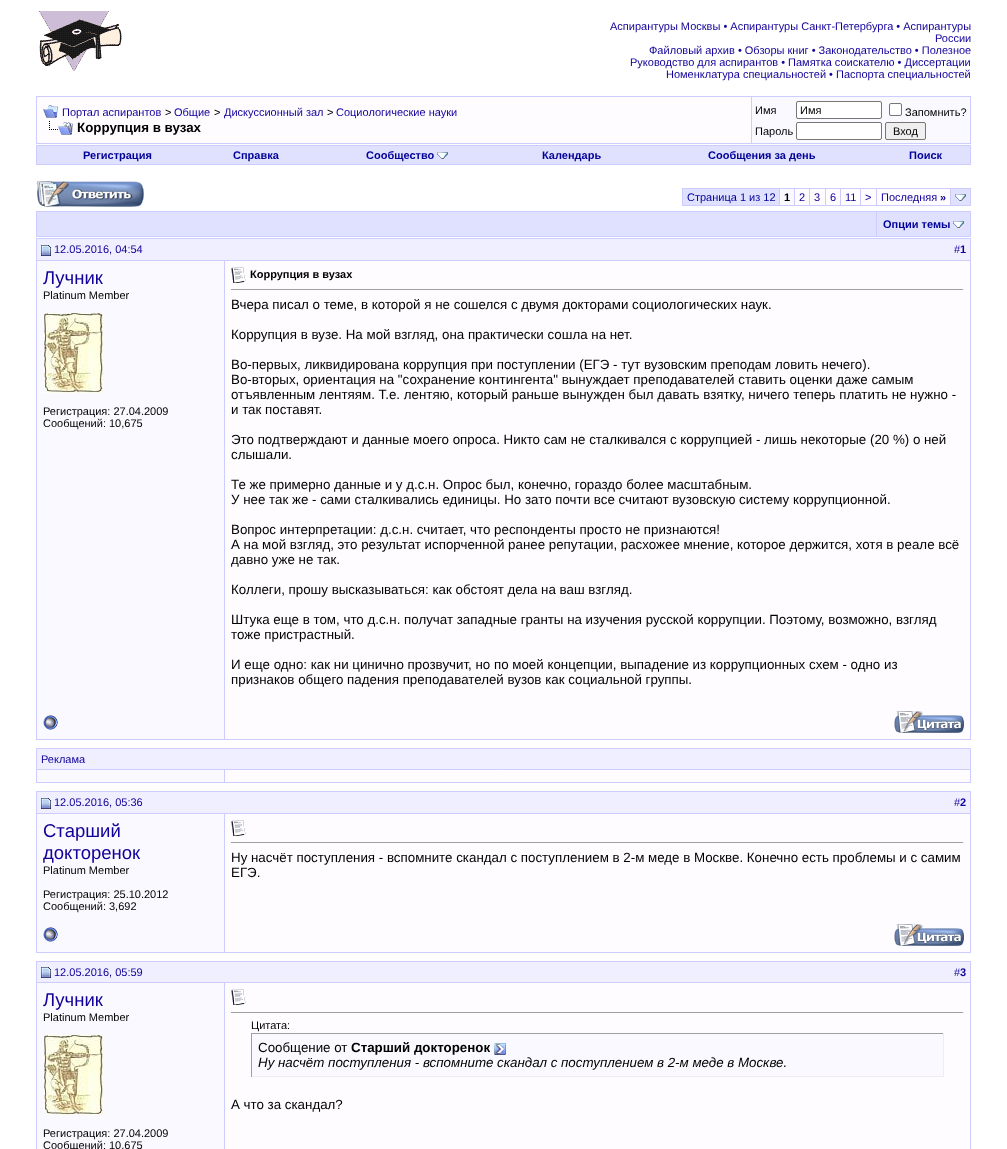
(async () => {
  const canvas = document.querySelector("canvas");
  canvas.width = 1007;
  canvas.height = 1149;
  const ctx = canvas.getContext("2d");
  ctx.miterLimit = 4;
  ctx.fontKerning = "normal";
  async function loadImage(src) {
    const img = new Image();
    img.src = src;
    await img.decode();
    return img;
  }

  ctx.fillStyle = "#ffffff";
  ctx.fillRect(0, 0, 1007, 1149);
  ctx.drawImage(await loadImage("img/1.png"), 39, 11, 83, 60);
  ctx.fillStyle = "#ccccff";
  ctx.fillRect(36, 96, 935, 48);
  ctx.fillStyle = "#fefcff";
  ctx.fillRect(37, 97, 714, 46);
  ctx.drawImage(await loadImage("img/2.png"), 43, 105, 15, 13);
  ctx.drawImage(await loadImage("img/3.png"), 49, 121, 24, 14);
  ctx.fillStyle = "#f9f9ff";
  ctx.fillRect(752, 97, 218, 46);
  ctx.fillStyle = "#ffffff";
  ctx.beginPath();
  ctx.roundRect(796.5, 101.5, 85, 17, 1.5);
  ctx.fill();
  ctx.strokeStyle = "#767676";
  ctx.stroke();
  ctx.beginPath();
  ctx.roundRect(889.5, 103.5, 12, 12, 1.5);
  ctx.fill();
  ctx.stroke();
  ctx.beginPath();
  ctx.roundRect(796.5, 122.5, 85, 17, 1.5);
  ctx.fill();
  ctx.stroke();
  ctx.fillStyle = "#efefef";
  ctx.beginPath();
  ctx.roundRect(885.5, 122.5, 40, 17, 1.5);
  ctx.fill();
  ctx.stroke();
  ctx.fillStyle = "#ccccff";
  ctx.fillRect(36, 145, 935, 20);
  ctx.fillStyle = "#e0e0ff";
  ctx.fillRect(37, 146, 933, 18);
  ctx.drawImage(await loadImage("img/4.png"), 437, 152, 11, 7);
  ctx.drawImage(await loadImage("img/5.png"), 36, 181, 108, 26);
  for (const [x, y, w, h, color] of [
    [682, 188, 289, 18, "#ccccff"],
    [683, 189, 96, 16, "#e0e0ff"],
    [780, 189, 14, 16, "#f9f9ff"],
    [795, 189, 14, 16, "#fefcff"],
    [810, 189, 15, 16, "#fefcff"],
    [826, 189, 14, 16, "#fefcff"],
    [841, 189, 19, 16, "#fefcff"],
    [861, 189, 15, 16, "#fefcff"],
    [877, 189, 73, 16, "#fefcff"],
    [951, 189, 19, 16, "#e0e0ff"],
  ]) {
    ctx.fillStyle = color;
    ctx.fillRect(x, y, w, h);
  }
  ctx.drawImage(await loadImage("img/4.png"), 955, 194, 11, 7);
  for (const [x, y, w, h, color] of [
    [36, 211, 935, 26, "#ccccff"],
    [37, 212, 839, 24, "#e0e0ff"],
    [877, 212, 93, 24, "#e0e0ff"],
  ]) {
    ctx.fillStyle = color;
    ctx.fillRect(x, y, w, h);
  }
  ctx.drawImage(await loadImage("img/4.png"), 953, 221, 11, 7);
  for (const [x, y, w, h, color] of [
    [37, 239, 933, 21, "#efefff"],
    [36, 238, 935, 1, "#ccccff"],
    [36, 260, 189, 1, "#ccccff"],
    [36, 238, 1, 467, "#ccccff"],
  ]) {
    ctx.fillStyle = color;
    ctx.fillRect(x, y, w, h);
  }
  ctx.drawImage(await loadImage("img/6.png"), 41, 245, 10, 11);
  for (const [x, y, w, h, color] of [
    [970, 238, 1, 502, "#ccccff"],
    [225, 260, 746, 1, "#ccccff"],
    [37, 261, 187, 478, "#f9f9ff"],
    [224, 261, 1, 479, "#ccccff"],
  ]) {
    ctx.fillStyle = color;
    ctx.fillRect(x, y, w, h);
  }
  ctx.drawImage(await loadImage("img/7.png"), 43, 313, 60, 80);
  ctx.fillStyle = "#fefcff";
  ctx.fillRect(225, 261, 745, 478);
  ctx.drawImage(await loadImage("img/8.png"), 231, 267, 15, 16);
  for (const [x, y, w, h, color] of [
    [231, 289, 733, 1, "#9f9f9f"],
    [963, 289, 1, 1, "#eeeeee"],
    [36, 739, 935, 1, "#ccccff"],
    [36, 705, 1, 35, "#ccccff"],
  ]) {
    ctx.fillStyle = color;
    ctx.fillRect(x, y, w, h);
  }
  ctx.drawImage(await loadImage("img/9.png"), 43, 715, 15, 15);
  ctx.drawImage(await loadImage("img/10.png"), 894, 711, 70, 22);
  ctx.fillStyle = "#efefff";
  ctx.beginPath();
  ctx.rect(36.5, 748.5, 934, 21);
  ctx.fill();
  ctx.strokeStyle = "#ccccff";
  ctx.stroke();
  for (const [x, y, w, h, color] of [
    [37, 770, 187, 12, "#f9f9ff"],
    [36, 782, 188, 1, "#ccccff"],
    [36, 770, 1, 13, "#ccccff"],
    [225, 770, 745, 12, "#fefcff"],
    [970, 770, 1, 13, "#ccccff"],
    [224, 782, 747, 1, "#ccccff"],
    [224, 770, 1, 13, "#ccccff"],
    [37, 792, 933, 21, "#efefff"],
    [36, 791, 935, 1, "#ccccff"],
    [36, 813, 189, 1, "#ccccff"],
    [36, 791, 1, 127, "#ccccff"],
  ]) {
    ctx.fillStyle = color;
    ctx.fillRect(x, y, w, h);
  }
  ctx.drawImage(await loadImage("img/6.png"), 41, 798, 10, 11);
  for (const [x, y, w, h, color] of [
    [970, 791, 1, 162, "#ccccff"],
    [225, 813, 746, 1, "#ccccff"],
    [37, 814, 187, 138, "#f9f9ff"],
    [224, 814, 1, 139, "#ccccff"],
    [225, 814, 745, 138, "#fefcff"],
  ]) {
    ctx.fillStyle = color;
    ctx.fillRect(x, y, w, h);
  }
  ctx.drawImage(await loadImage("img/8.png"), 231, 820, 15, 16);
  for (const [x, y, w, h, color] of [
    [231, 842, 733, 1, "#9f9f9f"],
    [963, 842, 1, 1, "#eeeeee"],
    [36, 952, 935, 1, "#ccccff"],
    [36, 918, 1, 35, "#ccccff"],
  ]) {
    ctx.fillStyle = color;
    ctx.fillRect(x, y, w, h);
  }
  ctx.drawImage(await loadImage("img/9.png"), 43, 927, 15, 15);
  ctx.drawImage(await loadImage("img/10.png"), 894, 924, 70, 22);
  for (const [x, y, w, h, color] of [
    [37, 962, 933, 20, "#efefff"],
    [36, 961, 935, 1, "#ccccff"],
    [36, 982, 189, 1, "#ccccff"],
    [36, 961, 1, 188, "#ccccff"],
  ]) {
    ctx.fillStyle = color;
    ctx.fillRect(x, y, w, h);
  }
  ctx.drawImage(await loadImage("img/6.png"), 41, 967, 10, 11);
  for (const [x, y, w, h, color] of [
    [970, 961, 1, 182, "#ccccff"],
    [225, 982, 746, 1, "#ccccff"],
    [37, 983, 187, 166, "#f9f9ff"],
    [224, 983, 1, 166, "#ccccff"],
  ]) {
    ctx.fillStyle = color;
    ctx.fillRect(x, y, w, h);
  }
  ctx.drawImage(await loadImage("img/7.png"), 43, 1035, 60, 80);
  ctx.fillStyle = "#fefcff";
  ctx.fillRect(225, 983, 745, 160);
  ctx.drawImage(await loadImage("img/8.png"), 231, 989, 15, 16);
  for (const [x, y, w, h, color] of [
    [231, 1012, 733, 1, "#9f9f9f"],
    [963, 1012, 1, 1, "#eeeeee"],
    [252, 1034, 691, 42, "#f9f9ff"],
    [251, 1033, 693, 1, "#9f9f9f"],
    [943, 1033, 1, 44, "#eeeeee"],
    [251, 1076, 693, 1, "#eeeeee"],
    [251, 1033, 1, 44, "#9f9f9f"],
  ]) {
    ctx.fillStyle = color;
    ctx.fillRect(x, y, w, h);
  }
  ctx.drawImage(await loadImage("img/11.png"), 494, 1043, 12, 12);
  ctx.fillStyle = "#fefcff";
  ctx.fillRect(225, 1143, 746, 6);
  ctx.fillStyle = "#ccccff";
  ctx.fillRect(970, 1143, 1, 6);
  ctx.font = "11px Liberation Sans";
  ctx.fillStyle = "#110099";
  for (const [text, x, y] of [
    ["Аспирантуры Москвы • Аспирантуры Санкт-Петербурга • Аспирантуры", 610, 30],
    ["России", 935, 42],
    ["Файловый архив • Обзоры книг • Законодательство • Полезное", 649, 54],
    ["Руководство для аспирантов • Памятка соискателю • Диссертации", 630, 66],
    ["Номенклатура специальностей • Паспорта специальностей", 666, 78],
    ["Портал аспирантов", 62, 116],
  ]) {
    ctx.fillText(text, x, y);
  }
  ctx.fillStyle = "#000000";
  ctx.fillText(">", 165, 116);
  ctx.fillStyle = "#110099";
  ctx.fillText("Общие", 174, 116);
  ctx.fillStyle = "#000000";
  ctx.fillText(">", 214, 116);
  ctx.fillStyle = "#110099";
  ctx.fillText("Дискуссионный зал", 224, 116);
  ctx.fillStyle = "#000000";
  ctx.fillText(">", 327, 116);
  ctx.fillStyle = "#110099";
  ctx.fillText("Социологические науки", 336, 116);
  ctx.font = "bold 13.33px Liberation Sans";
  ctx.fillStyle = "#000000";
  ctx.fillText("Коррупция в вузах", 77, 132);
  ctx.font = "11px Liberation Sans";
  for (const [text, x, y] of [
    ["Имя", 755, 114],
    ["Имя", 800, 114],
    ["Запомнить?", 905, 116],
    ["Пароль", 755, 135],
    ["Вход", 893, 135],
  ]) {
    ctx.fillText(text, x, y);
  }
  ctx.font = "bold 11px Liberation Sans";
  ctx.fillStyle = "#000099";
  for (const [text, x, y] of [
    ["Регистрация", 83, 159],
    ["Справка", 233, 159],
    ["Сообщество", 366, 159],
    ["Календарь", 542, 159],
    ["Сообщения за день", 708, 159],
    ["Поиск", 909, 159],
  ]) {
    ctx.fillText(text, x, y);
  }
  ctx.font = "11px Liberation Sans";
  ctx.fillText("Страница 1 из 12", 687, 201);
  ctx.font = "bold 11px Liberation Sans";
  ctx.fillStyle = "#000000";
  ctx.fillText("1", 784, 201);
  ctx.font = "11px Liberation Sans";
  ctx.fillStyle = "#110099";
  for (const [text, x, y] of [
    ["2", 799, 201],
    ["3", 814, 201],
    ["6", 830, 201],
    ["11", 845, 201],
    [">", 865, 201],
    ["Последняя", 881, 201],
  ]) {
    ctx.fillText(text, x, y);
  }
  ctx.font = "bold 11px Liberation Sans";
  ctx.fillText("»", 940, 201);
  ctx.fillStyle = "#000099";
  ctx.fillText("Опции темы", 883, 228);
  ctx.font = "11px Liberation Sans";
  ctx.fillStyle = "#110099";
  ctx.fillText("12.05.2016, 04:54", 54, 253);
  ctx.fillText("#", 954, 253);
  ctx.font = "bold 11px Liberation Sans";
  ctx.fillText("1", 960, 253);
  ctx.font = "18.5px Liberation Sans";
  ctx.fillText("Лучник", 43, 284);
  ctx.font = "11px Liberation Sans";
  ctx.fillStyle = "#000000";
  for (const [text, x, y] of [
    ["Platinum Member", 43, 299],
    ["Регистрация: 27.04.2009", 43, 415],
    ["Сообщений: 10,675", 43, 427],
  ]) {
    ctx.fillText(text, x, y);
  }
  ctx.font = "bold 11px Liberation Sans";
  ctx.fillText("Коррупция в вузах", 250, 278);
  ctx.font = "13.33px Liberation Sans";
  for (const [text, x, y] of [
    ["Вчера писал о теме, в которой я не сошелся с двумя докторами социологических наук.", 231, 309],
    ["Коррупция в вузе. На мой взгляд, она практически сошла на нет.", 231, 339],
    ["Во-первых, ликвидирована коррупция при поступлении (ЕГЭ - тут вузовским преподам ловить нечего).", 231, 369],
    ["Во-вторых, ориентация на \"сохранение контингента\" вынуждает преподавателей ставить оценки даже самым", 231, 384],
    ["отъявленным лентяям. Т.е. лентяю, который раньше вынужден был давать взятку, ничего теперь платить не нужно -", 231, 399],
    ["и так поставят.", 231, 414],
    ["Это подтверждают и данные моего опроса. Никто сам не сталкивался с коррупцией - лишь некоторые (20 %) о ней", 231, 444],
    ["слышали.", 231, 459],
    ["Те же примерно данные и у д.с.н. Опрос был, конечно, гораздо более масштабным.", 231, 489],
    ["У нее так же - сами сталкивались единицы. Но зато почти все считают вузовскую систему коррупционной.", 231, 504],
    ["Вопрос интерпретации: д.с.н. считает, что респонденты просто не признаются!", 231, 534],
    ["А на мой взгляд, это результат испорченной ранее репутации, расхожее мнение, которое держится, хотя в реале всё", 231, 549],
    ["давно уже не так.", 231, 564],
    ["Коллеги, прошу высказываться: как обстоят дела на ваш взгляд.", 231, 594],
    ["Штука еще в том, что д.с.н. получат западные гранты на изучения русской коррупции. Поэтому, возможно, взгляд", 231, 624],
    ["тоже пристрастный.", 231, 639],
    ["И еще одно: как ни цинично прозвучит, но по моей концепции, выпадение из коррупционных схем - одно из", 231, 669],
    ["признаков общего падения преподавателей вузов как социальной группы.", 231, 684],
  ]) {
    ctx.fillText(text, x, y);
  }
  ctx.font = "11px Liberation Sans";
  ctx.fillStyle = "#110099";
  for (const [text, x, y] of [
    ["Реклама", 41, 763],
    ["12.05.2016, 05:36", 54, 806],
    ["#", 954, 806],
  ]) {
    ctx.fillText(text, x, y);
  }
  ctx.font = "bold 11px Liberation Sans";
  ctx.fillText("2", 960, 806);
  ctx.font = "18.5px Liberation Sans";
  ctx.fillText("Старший", 43, 837);
  ctx.fillText("докторенок", 43, 859);
  ctx.font = "11px Liberation Sans";
  ctx.fillStyle = "#000000";
  for (const [text, x, y] of [
    ["Platinum Member", 43, 874],
    ["Регистрация: 25.10.2012", 43, 898],
    ["Сообщений: 3,692", 43, 910],
  ]) {
    ctx.fillText(text, x, y);
  }
  ctx.font = "13.33px Liberation Sans";
  ctx.fillText("Ну насчёт поступления - вспомните скандал с поступлением в 2-м меде в Москве. Конечно есть проблемы и с самим", 231, 862);
  ctx.fillText("ЕГЭ.", 231, 877);
  ctx.font = "11px Liberation Sans";
  ctx.fillStyle = "#110099";
  ctx.fillText("12.05.2016, 05:59", 54, 976);
  ctx.fillText("#", 954, 976);
  ctx.font = "bold 11px Liberation Sans";
  ctx.fillText("3", 960, 976);
  ctx.font = "18.5px Liberation Sans";
  ctx.fillText("Лучник", 43, 1006);
  ctx.font = "11px Liberation Sans";
  ctx.fillStyle = "#000000";
  for (const [text, x, y] of [
    ["Platinum Member", 43, 1021],
    ["Регистрация: 27.04.2009", 43, 1137],
    ["Сообщений: 10,675", 43, 1149],
    ["Цитата:", 251, 1029],
  ]) {
    ctx.fillText(text, x, y);
  }
  ctx.font = "13.33px Liberation Sans";
  ctx.fillText("Сообщение от", 258, 1052);
  ctx.font = "bold 13.33px Liberation Sans";
  ctx.fillText("Старший докторенок", 351, 1052);
  ctx.font = "italic 13.33px Liberation Sans";
  ctx.fillText("Ну насчёт поступления - вспомните скандал с поступлением в 2-м меде в Москве.", 258, 1067);
  ctx.font = "13.33px Liberation Sans";
  ctx.fillText("А что за скандал?", 231, 1109);
})();
